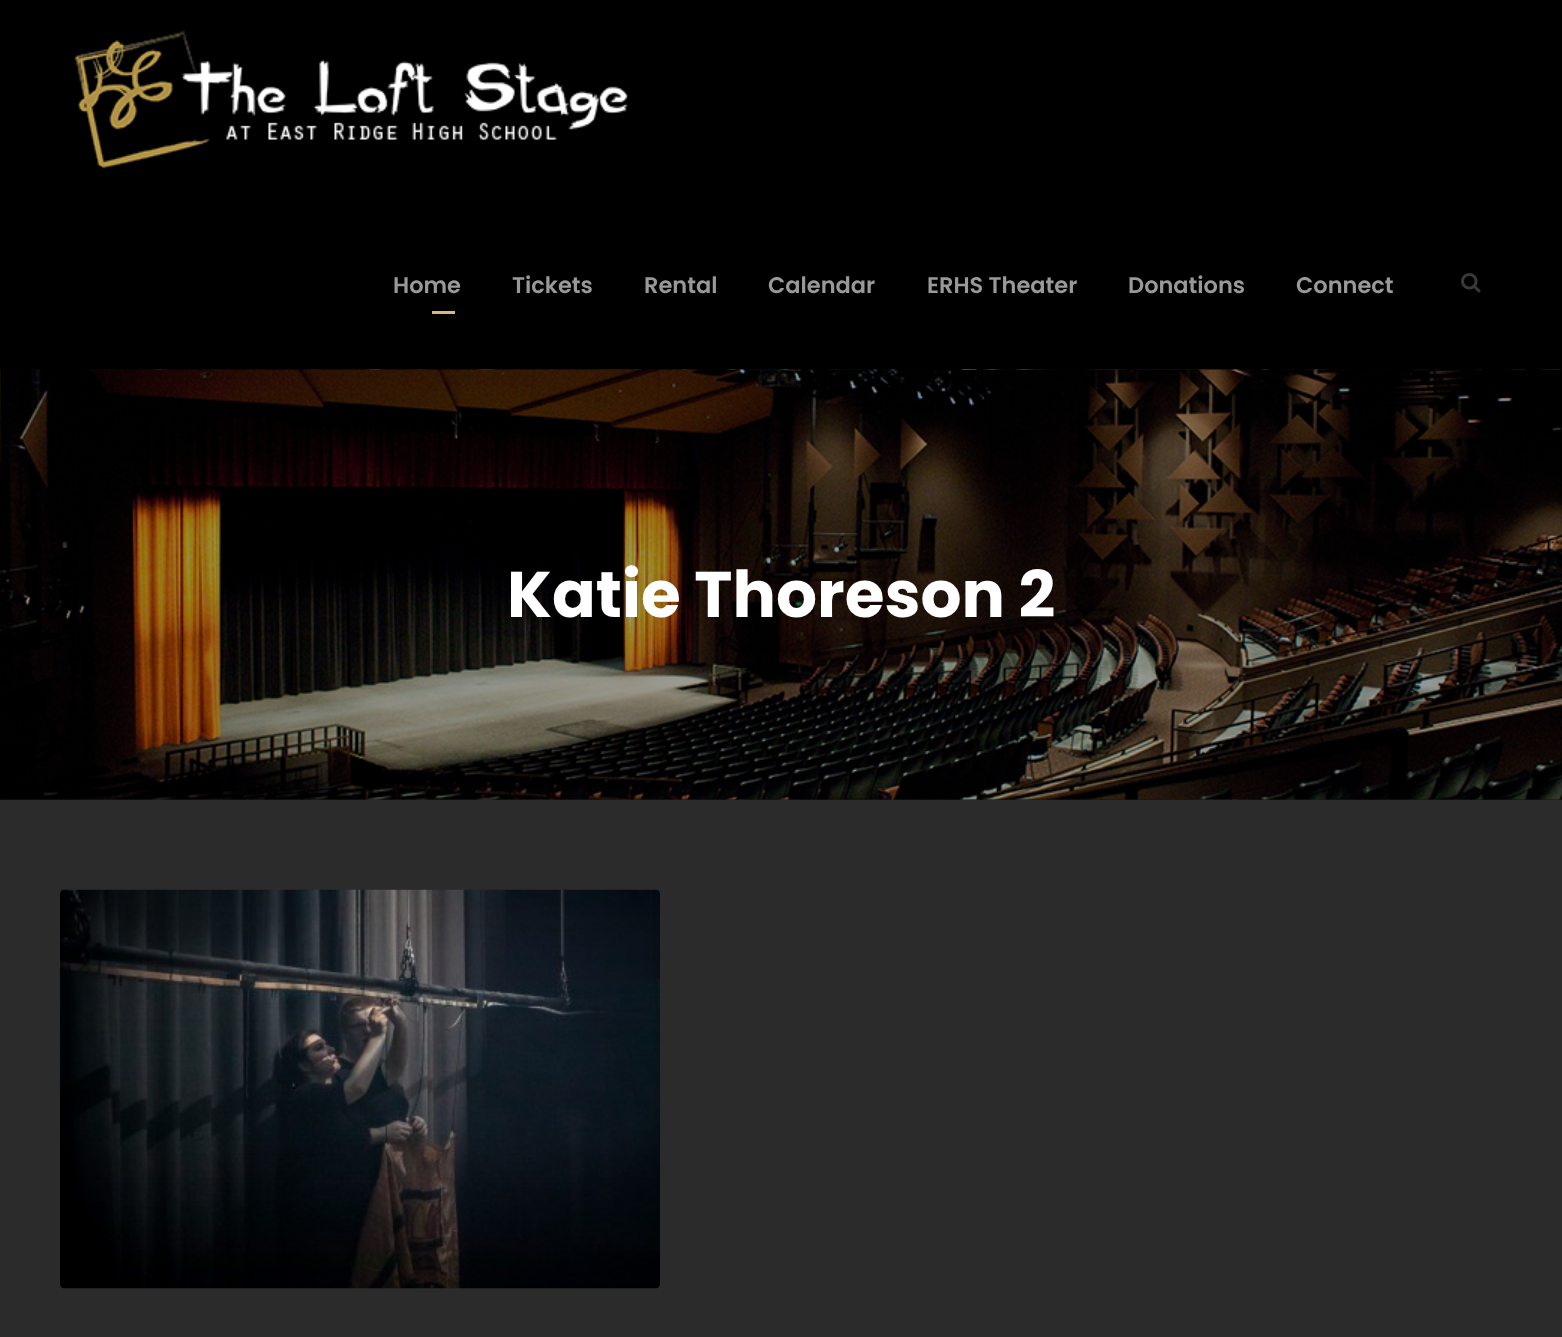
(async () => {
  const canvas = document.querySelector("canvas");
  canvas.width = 1562;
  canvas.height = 1337;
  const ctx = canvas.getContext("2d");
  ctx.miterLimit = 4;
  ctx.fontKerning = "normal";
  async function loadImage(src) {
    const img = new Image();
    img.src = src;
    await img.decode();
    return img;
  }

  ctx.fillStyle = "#2b2b2b";
  ctx.fillRect(0, 0, 1562, 1337);
  ctx.fillStyle = "#1a1a1a";
  ctx.fillRect(0, 799, 1562, 1);
  ctx.fillStyle = "#000000";
  ctx.fillRect(0, 0, 1562, 369);
  ctx.drawImage(await loadImage("img/1.png"), 74, 30, 554, 139);
  ctx.fillStyle = "#dfb77c";
  ctx.fillRect(432, 311, 23, 3);
  ctx.drawImage(await loadImage("img/2.png"), 1461, 273, 20, 20);
  ctx.drawImage(await loadImage("img/3.png"), 0, 369, 1562, 431);
  ctx.drawImage(await loadImage("img/4.png"), 60, 889, 600, 400);
  ctx.font = "600 22.5px Poppins";
  ctx.fillStyle = "#999999";
  for (const [text, x, y] of [
    ["Home", 393, 293],
    ["Tickets", 512, 293],
    ["Rental", 644, 293],
    ["Calendar", 768, 293],
    ["ERHS Theater", 927, 293],
    ["Donations", 1128, 293],
    ["Connect", 1296, 293],
  ]) {
    ctx.fillText(text, x, y);
  }
  ctx.font = "bold 64.5px Poppins";
  ctx.fillStyle = "#ffffff";
  ctx.fillText("Katie Thoreson 2", 507, 617);
})();
